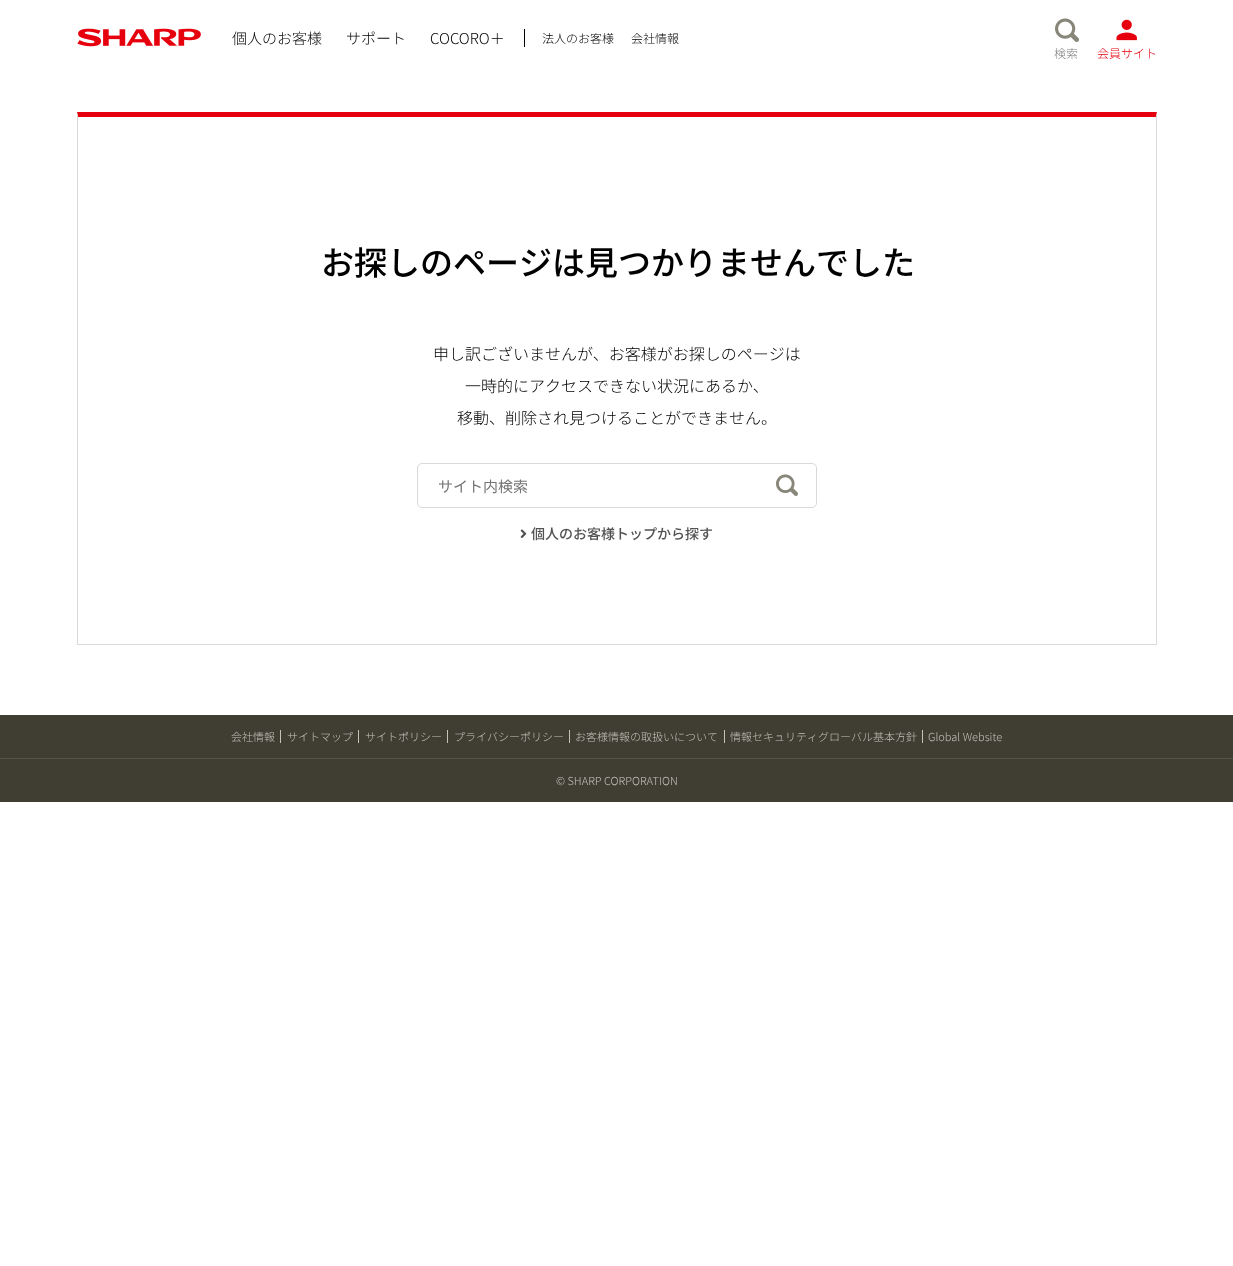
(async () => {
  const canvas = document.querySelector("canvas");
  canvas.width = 1233;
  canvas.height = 1266;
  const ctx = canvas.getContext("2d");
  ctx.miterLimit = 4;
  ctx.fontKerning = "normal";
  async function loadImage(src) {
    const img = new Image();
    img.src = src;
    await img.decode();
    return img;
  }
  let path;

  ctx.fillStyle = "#ffffff";
  ctx.fillRect(0, 0, 1233, 1266);
  ctx.drawImage(await loadImage("img/1.png"), 77, 28, 124, 19);
  ctx.fillStyle = "#000000";
  ctx.fillRect(524, 29, 1, 18);
  ctx.drawImage(await loadImage("img/2.png"), 1055, 18, 24, 24);
  ctx.drawImage(await loadImage("img/3.png"), 1116, 19, 21, 22);
  ctx.fillStyle = "#e6000d";
  path = new Path2D("M77 112H1157L1156 117H78Z");
  ctx.fill(path);
  ctx.fillStyle = "#d9d9d9";
  path = new Path2D("M1157 112V645L1156 644V117Z");
  ctx.fill(path);
  ctx.fillRect(77, 644, 1080, 1);
  path = new Path2D("M77 645V112L78 117V644Z");
  ctx.fill(path);
  ctx.beginPath();
  ctx.roundRect(417.5, 463.5, 399, 44, 4.5);
  ctx.strokeStyle = "#d9d9d9";
  ctx.stroke();
  ctx.drawImage(await loadImage("img/4.png"), 776, 474, 22, 22);
  ctx.drawImage(await loadImage("img/5.png"), 520, 529, 7, 10);
  for (const [x, y, w, h, color] of [
    [0, 715, 1233, 87, "#403d33"],
    [0, 758, 1233, 1, "#535148"],
    [280, 730, 1, 13, "#c3c2bb"],
    [358, 730, 1, 13, "#c3c2bb"],
    [447, 730, 1, 13, "#c3c2bb"],
    [569, 730, 1, 13, "#c3c2bb"],
    [724, 730, 1, 13, "#c3c2bb"],
    [922, 730, 1, 13, "#c3c2bb"],
  ]) {
    ctx.fillStyle = color;
    ctx.fillRect(x, y, w, h);
  }
  ctx.font = "300 15px Noto Sans JP";
  ctx.fillStyle = "#000000";
  for (const [text, x, y] of [
    ["個人のお客様", 232, 44],
    ["サポート", 346, 44],
    ["COCORO＋", 430, 44],
  ]) {
    ctx.fillText(text, x, y);
  }
  ctx.font = "300 12px Noto Sans JP";
  ctx.fillText("法人のお客様", 542, 43);
  ctx.fillText("会社情報", 631, 43);
  ctx.fillStyle = "#7d7d7d";
  ctx.fillText("検索", 1054, 58);
  ctx.fillStyle = "#e6000d";
  ctx.fillText("会員サイト", 1097, 58);
  ctx.font = "500 33px Noto Sans JP";
  ctx.fillStyle = "#000000";
  ctx.fillText("お探しのページは見つかりませんでした", 321, 275);
  ctx.font = "300 16px Noto Sans JP";
  for (const [text, x, y] of [
    ["申し訳ございませんが、お客様がお探しのページは", 433, 360],
    ["一時的にアクセスできない状況にあるか、", 465, 392],
    ["移動、削除され見つけることができません。", 457, 424],
  ]) {
    ctx.fillText(text, x, y);
  }
  ctx.font = "15px Noto Sans JP";
  ctx.fillStyle = "#757575";
  ctx.fillText("サイト内検索", 438, 492);
  ctx.font = "500 14px Noto Sans JP";
  ctx.fillStyle = "#535353";
  ctx.fillText("個人のお客様トップから探す", 531, 539);
  ctx.font = "300 11px Noto Sans JP";
  ctx.fillStyle = "#c3c2bb";
  for (const [text, x, y] of [
    ["会社情報", 231, 741],
    ["サイトマップ", 287, 741],
    ["サイトポリシー", 365, 741],
    ["プライバシーポリシー", 454, 741],
    ["お客様情報の取扱いについて", 575, 741],
    ["情報セキュリティグローバル基本方針", 730, 741],
    ["Global Website", 928, 741],
    ["© SHARP CORPORATION", 556, 785],
  ]) {
    ctx.fillText(text, x, y);
  }
})();
